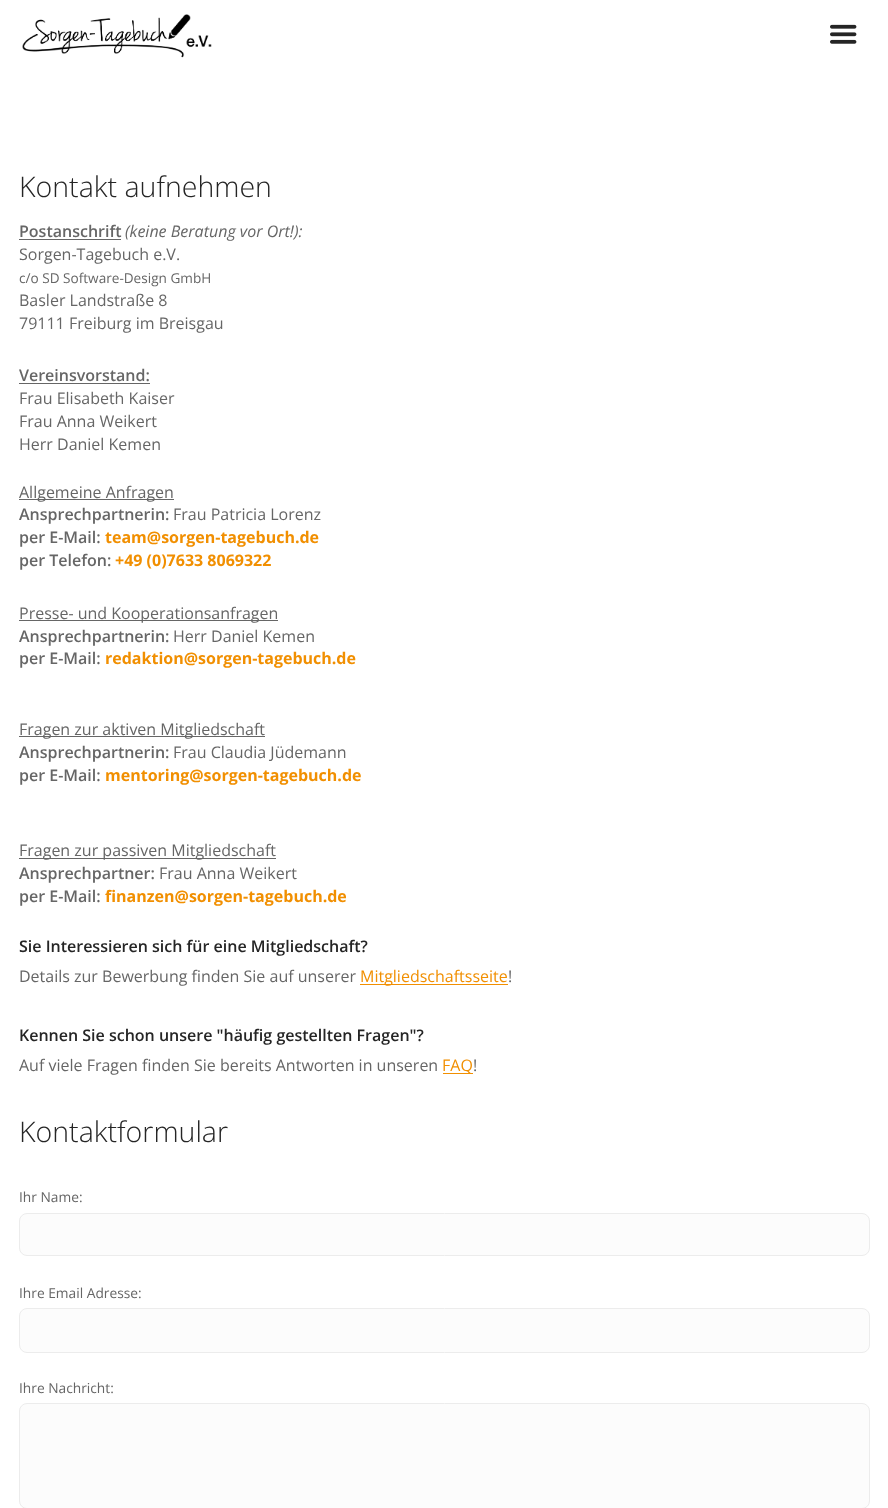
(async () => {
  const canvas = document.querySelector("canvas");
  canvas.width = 888;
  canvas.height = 1508;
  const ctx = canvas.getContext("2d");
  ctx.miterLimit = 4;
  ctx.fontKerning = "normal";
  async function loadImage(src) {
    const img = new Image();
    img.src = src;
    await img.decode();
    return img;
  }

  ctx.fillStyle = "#ffffff";
  ctx.fillRect(0, 0, 888, 1508);
  ctx.drawImage(await loadImage("img/1.png"), 22, 14, 190, 44);
  ctx.drawImage(await loadImage("img/2.png"), 830, 24, 27, 20);
  for (const [x, y, w, h, color] of [
    [19, 239, 102, 1, "#666666"],
    [19, 383, 131, 1, "#666666"],
    [19, 499, 155, 1, "#666666"],
    [19, 620, 259, 1, "#666666"],
    [19, 736, 246, 1, "#666666"],
    [19, 858, 257, 1, "#666666"],
    [360, 984, 148, 1, "#f18f01"],
    [443, 1073, 30, 1, "#f18f01"],
  ]) {
    ctx.fillStyle = color;
    ctx.fillRect(x, y, w, h);
  }
  ctx.fillStyle = "#fcfcfc";
  ctx.beginPath();
  ctx.roundRect(19.5, 1213.5, 850, 42, 7.5);
  ctx.fill();
  ctx.strokeStyle = "#ececec";
  ctx.stroke();
  ctx.beginPath();
  ctx.roundRect(19.5, 1308.5, 850, 44, 7.5);
  ctx.fill();
  ctx.stroke();
  ctx.beginPath();
  ctx.roundRect(19.5, 1403.5, 850, 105, 7.5);
  ctx.fill();
  ctx.stroke();
  ctx.font = "300 28.5px Open Sans";
  ctx.fillStyle = "#252525";
  ctx.fillText("Kontakt aufnehmen", 19, 197);
  ctx.font = "600 16px Open Sans";
  ctx.fillStyle = "#666666";
  ctx.fillText("Postanschrift", 19, 237);
  ctx.font = "italic 16px Open Sans";
  ctx.fillText("(keine Beratung vor Ort!):", 125, 237);
  ctx.font = "16px Open Sans";
  ctx.fillText("Sorgen-Tagebuch e.V.", 19, 260);
  ctx.font = "13.6px Open Sans";
  ctx.fillText("c/o SD Software-Design GmbH", 19, 283);
  ctx.font = "16px Open Sans";
  ctx.fillText("Basler Landstraße 8", 19, 306);
  ctx.fillText("79111 Freiburg im Breisgau", 19, 329);
  ctx.font = "600 16px Open Sans";
  ctx.fillText("Vereinsvorstand:", 19, 381);
  ctx.font = "16px Open Sans";
  for (const [text, x, y] of [
    ["Frau Elisabeth Kaiser", 19, 404],
    ["Frau Anna Weikert", 19, 427],
    ["Herr Daniel Kemen", 19, 450],
    ["Allgemeine Anfragen", 19, 498],
  ]) {
    ctx.fillText(text, x, y);
  }
  ctx.font = "600 16px Open Sans";
  ctx.fillText("Ansprechpartnerin:", 19, 520);
  ctx.font = "16px Open Sans";
  ctx.fillText("Frau Patricia Lorenz", 173, 520);
  ctx.font = "600 16px Open Sans";
  ctx.fillText("per E-Mail:", 19, 543);
  ctx.font = "bold 16px Open Sans";
  ctx.fillStyle = "#f18f01";
  ctx.fillText("team@sorgen-tagebuch.de", 105, 543);
  ctx.font = "600 16px Open Sans";
  ctx.fillStyle = "#666666";
  ctx.fillText("per Telefon:", 19, 566);
  ctx.font = "bold 16px Open Sans";
  ctx.fillStyle = "#f18f01";
  ctx.fillText("+49 (0)7633 8069322", 115, 566);
  ctx.font = "16px Open Sans";
  ctx.fillStyle = "#666666";
  ctx.fillText("Presse- und Kooperationsanfragen", 19, 619);
  ctx.font = "600 16px Open Sans";
  ctx.fillText("Ansprechpartnerin:", 19, 642);
  ctx.font = "16px Open Sans";
  ctx.fillText("Herr Daniel Kemen", 173, 642);
  ctx.font = "600 16px Open Sans";
  ctx.fillText("per E-Mail:", 19, 664);
  ctx.font = "bold 16px Open Sans";
  ctx.fillStyle = "#f18f01";
  ctx.fillText("redaktion@sorgen-tagebuch.de", 105, 664);
  ctx.font = "16px Open Sans";
  ctx.fillStyle = "#666666";
  ctx.fillText("Fragen zur aktiven Mitgliedschaft", 19, 735);
  ctx.font = "600 16px Open Sans";
  ctx.fillText("Ansprechpartnerin:", 19, 758);
  ctx.font = "16px Open Sans";
  ctx.fillText("Frau Claudia Jüdemann", 173, 758);
  ctx.font = "600 16px Open Sans";
  ctx.fillText("per E-Mail:", 19, 781);
  ctx.font = "bold 16px Open Sans";
  ctx.fillStyle = "#f18f01";
  ctx.fillText("mentoring@sorgen-tagebuch.de", 105, 781);
  ctx.font = "16px Open Sans";
  ctx.fillStyle = "#666666";
  ctx.fillText("Fragen zur passiven Mitgliedschaft", 19, 856);
  ctx.font = "600 16px Open Sans";
  ctx.fillText("Ansprechpartner:", 19, 879);
  ctx.font = "16px Open Sans";
  ctx.fillText("Frau Anna Weikert", 159, 879);
  ctx.font = "600 16px Open Sans";
  ctx.fillText("per E-Mail:", 19, 902);
  ctx.font = "bold 16px Open Sans";
  ctx.fillStyle = "#f18f01";
  ctx.fillText("finanzen@sorgen-tagebuch.de", 105, 902);
  ctx.font = "600 16px Open Sans";
  ctx.fillStyle = "#252525";
  ctx.fillText("Sie Interessieren sich für eine Mitgliedschaft?", 19, 952);
  ctx.font = "16px Open Sans";
  ctx.fillStyle = "#666666";
  ctx.fillText("Details zur Bewerbung finden Sie auf unserer", 19, 982);
  ctx.fillStyle = "#f18f01";
  ctx.fillText("Mitgliedschaftsseite", 360, 982);
  ctx.fillStyle = "#666666";
  ctx.fillText("!", 508, 982);
  ctx.font = "600 16px Open Sans";
  ctx.fillStyle = "#252525";
  ctx.fillText("Kennen Sie schon unsere \"häufig gestellten Fragen\"?", 19, 1041);
  ctx.font = "16px Open Sans";
  ctx.fillStyle = "#666666";
  ctx.fillText("Auf viele Fragen finden Sie bereits Antworten in unseren", 19, 1071);
  ctx.fillStyle = "#f18f01";
  ctx.fillText("FAQ", 442, 1071);
  ctx.fillStyle = "#666666";
  ctx.fillText("!", 473, 1071);
  ctx.font = "300 28.5px Open Sans";
  ctx.fillStyle = "#252525";
  ctx.fillText("Kontaktformular", 19, 1142);
  ctx.font = "13.75px Open Sans";
  ctx.fillStyle = "#666666";
  for (const [text, x, y] of [
    ["Ihr Name:", 19, 1202],
    ["Ihre Email Adresse:", 19, 1298],
    ["Ihre Nachricht:", 19, 1393],
  ]) {
    ctx.fillText(text, x, y);
  }
})();
